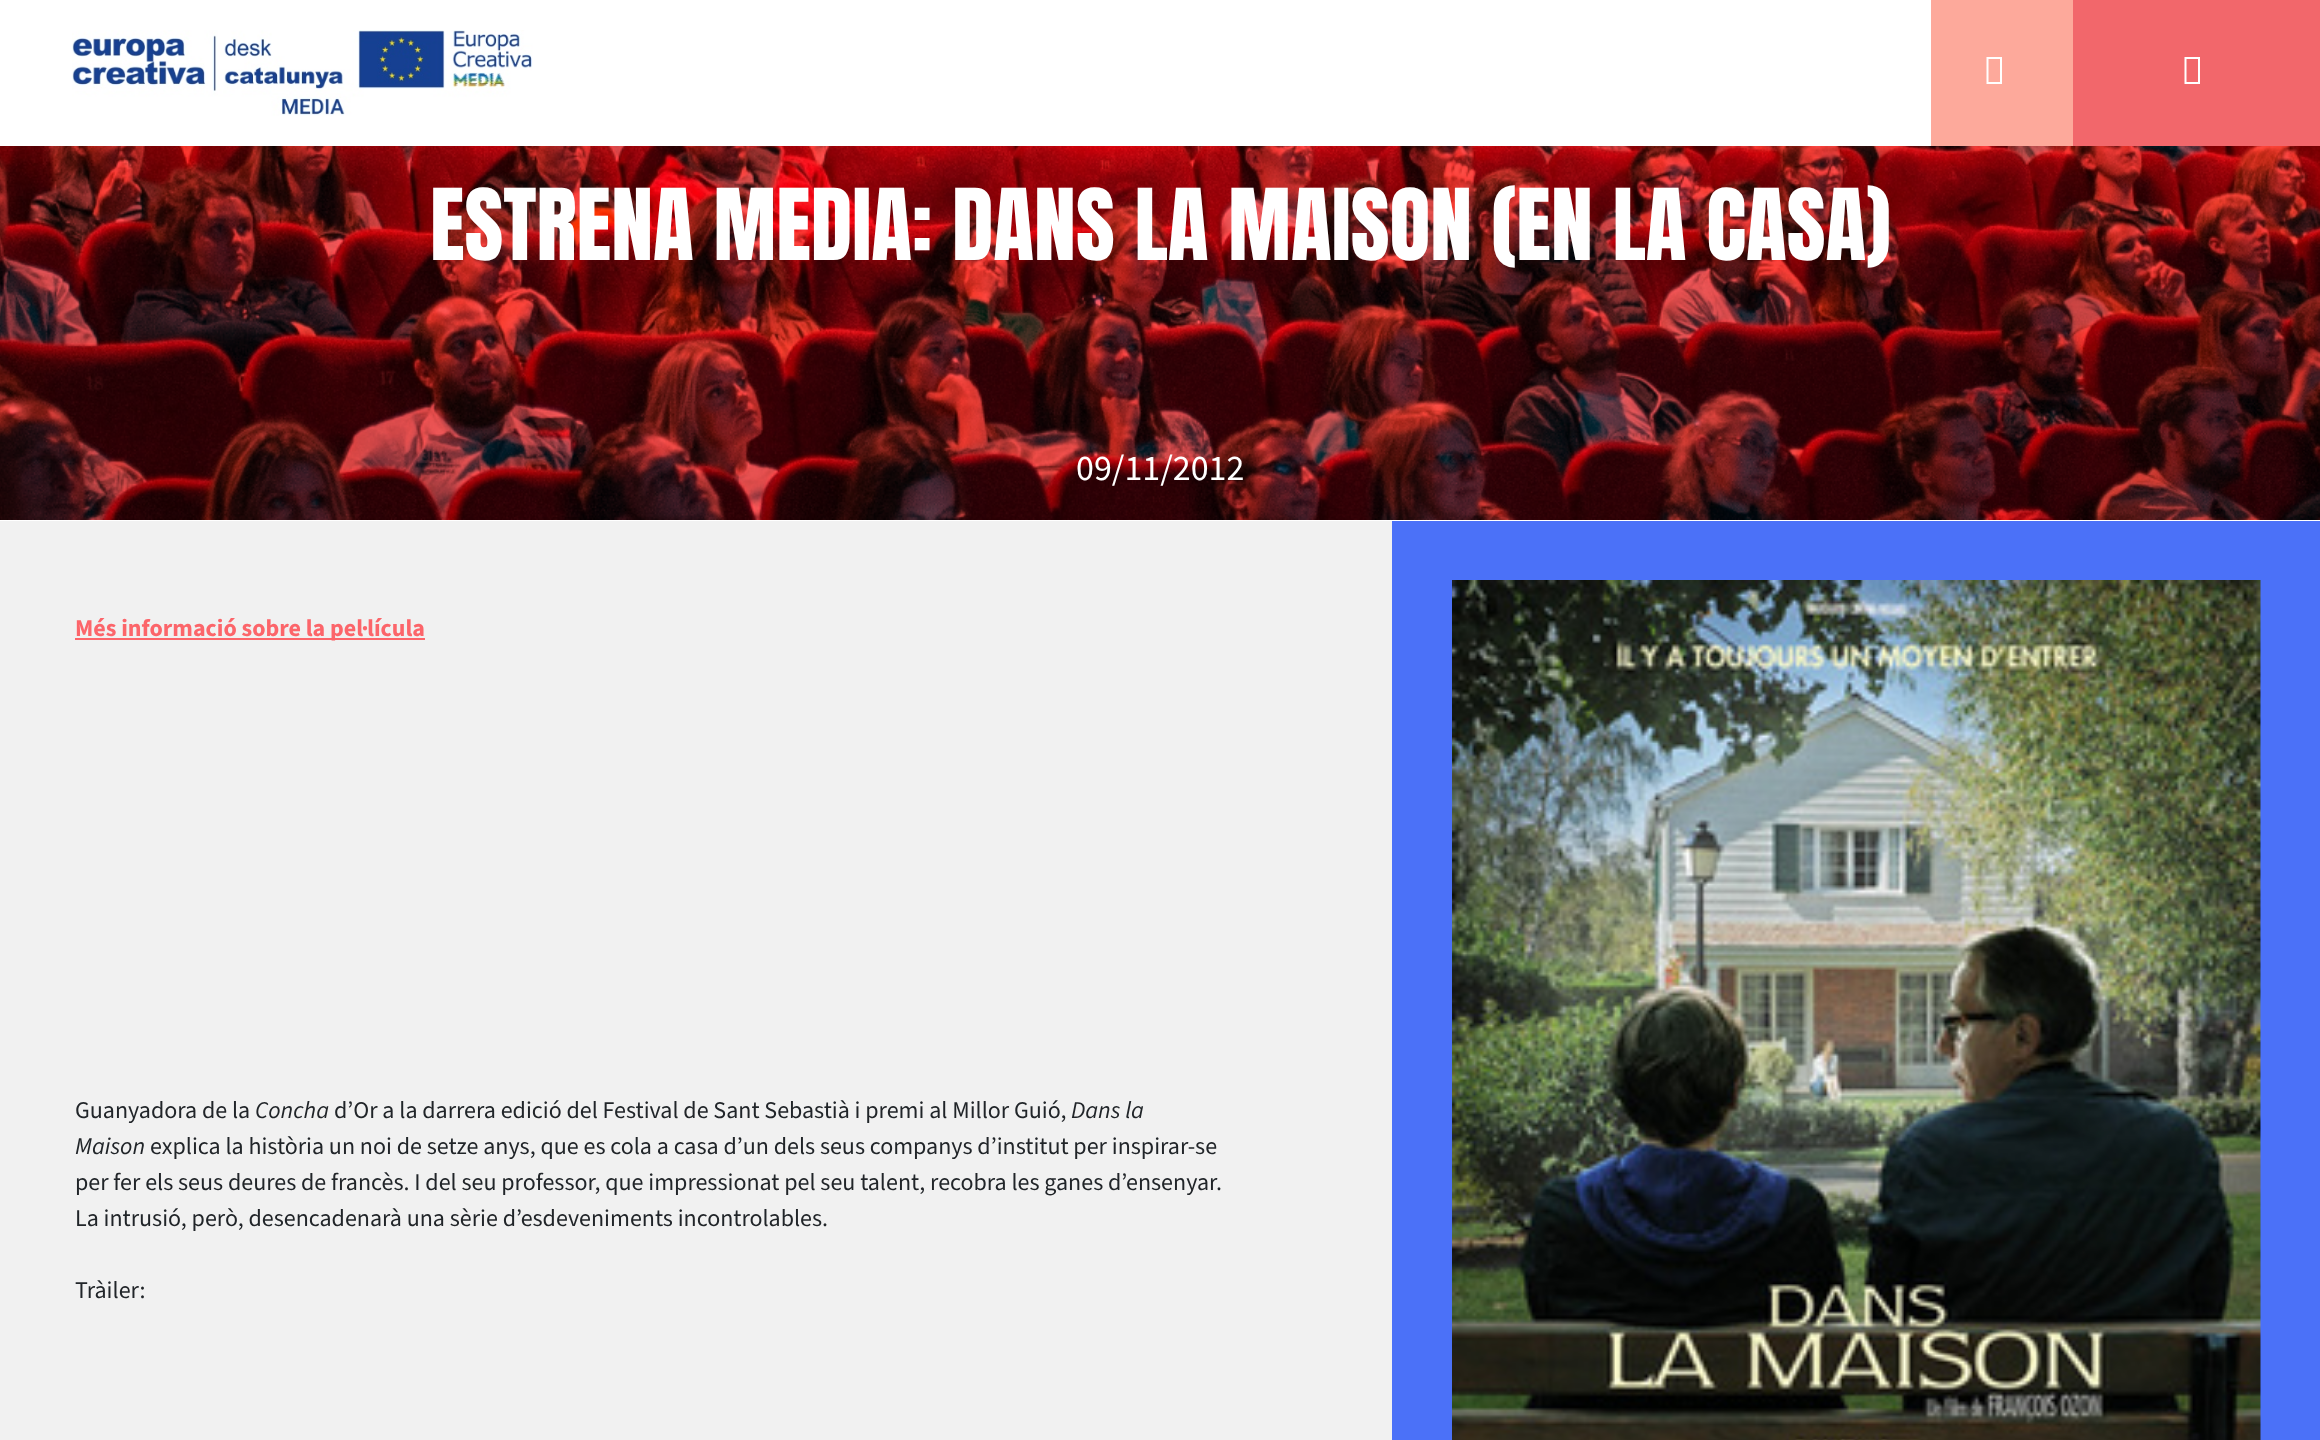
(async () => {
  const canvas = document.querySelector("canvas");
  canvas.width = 2320;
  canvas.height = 1440;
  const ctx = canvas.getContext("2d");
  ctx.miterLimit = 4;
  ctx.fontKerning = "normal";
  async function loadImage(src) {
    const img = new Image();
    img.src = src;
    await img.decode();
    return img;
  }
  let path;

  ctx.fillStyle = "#ffffff";
  ctx.fillRect(0, 0, 2320, 1440);
  ctx.drawImage(await loadImage("img/1.png"), 72, 30, 461, 86);
  ctx.fillStyle = "#fda99b";
  ctx.fillRect(1931, 0, 142, 146);
  ctx.fillStyle = "#ffffff";
  path = new Path2D("M1986.5 84V57H2002V84ZM1988.5 82H2000V59H1988.5Z");
  ctx.fill(path);
  ctx.fillStyle = "#f2676b";
  ctx.fillRect(2073, 0, 247, 146);
  ctx.fillStyle = "#ffffff";
  path = new Path2D("M2184.5 84V57H2200V84ZM2186.5 82H2198V59H2186.5Z");
  ctx.fill(path);
  ctx.drawImage(await loadImage("img/2.png"), 0, 146, 2320, 374);
  for (const [x, y, w, h, color] of [
    [0, 521, 1392, 919, "#f1f1f1"],
    [75, 638, 350, 2, "#fc656a"],
    [1392, 521, 928, 919, "#4b71f8"],
  ]) {
    ctx.fillStyle = color;
    ctx.fillRect(x, y, w, h);
  }
  ctx.drawImage(await loadImage("img/3.png"), 1452, 580, 809, 860);
  ctx.font = "84px Anton";
  ctx.fillStyle = "#ffffff";
  ctx.fillText("ESTRENA MEDIA: DANS LA MAISON (EN LA CASA)", 430, 260);
  ctx.font = "36px Source Sans Pro";
  ctx.fillText("09/11/2012", 1076, 480);
  ctx.font = "bold 24px 'Source Sans 3'";
  ctx.fillStyle = "#fc656a";
  ctx.fillText("Més informació sobre la pel·lícula", 75, 636);
  ctx.font = "24px 'Source Sans 3'";
  ctx.fillStyle = "#212529";
  ctx.fillText("Guanyadora de la", 75, 1118);
  ctx.font = "italic 24px 'Source Sans 3'";
  ctx.fillText("Concha", 255, 1118);
  ctx.font = "24px 'Source Sans 3'";
  ctx.fillText("d’Or a la darrera edició del Festival de Sant Sebastià i premi al Millor Guió,", 334, 1118);
  ctx.font = "italic 24px 'Source Sans 3'";
  ctx.fillText("Dans la", 1071, 1118);
  ctx.fillText("Maison", 75, 1154);
  ctx.font = "24px 'Source Sans 3'";
  for (const [text, x, y] of [
    ["explica la història un noi de setze anys, que es cola a casa d’un dels seus companys d’institut per inspirar-se", 150, 1154],
    ["per fer els seus deures de francès. I del seu professor, que impressionat pel seu talent, recobra les ganes d’ensenyar.", 75, 1190],
    ["La intrusió, però, desencadenarà una sèrie d’esdeveniments incontrolables.", 75, 1226],
    ["Tràiler:", 75, 1298],
  ]) {
    ctx.fillText(text, x, y);
  }
})();
